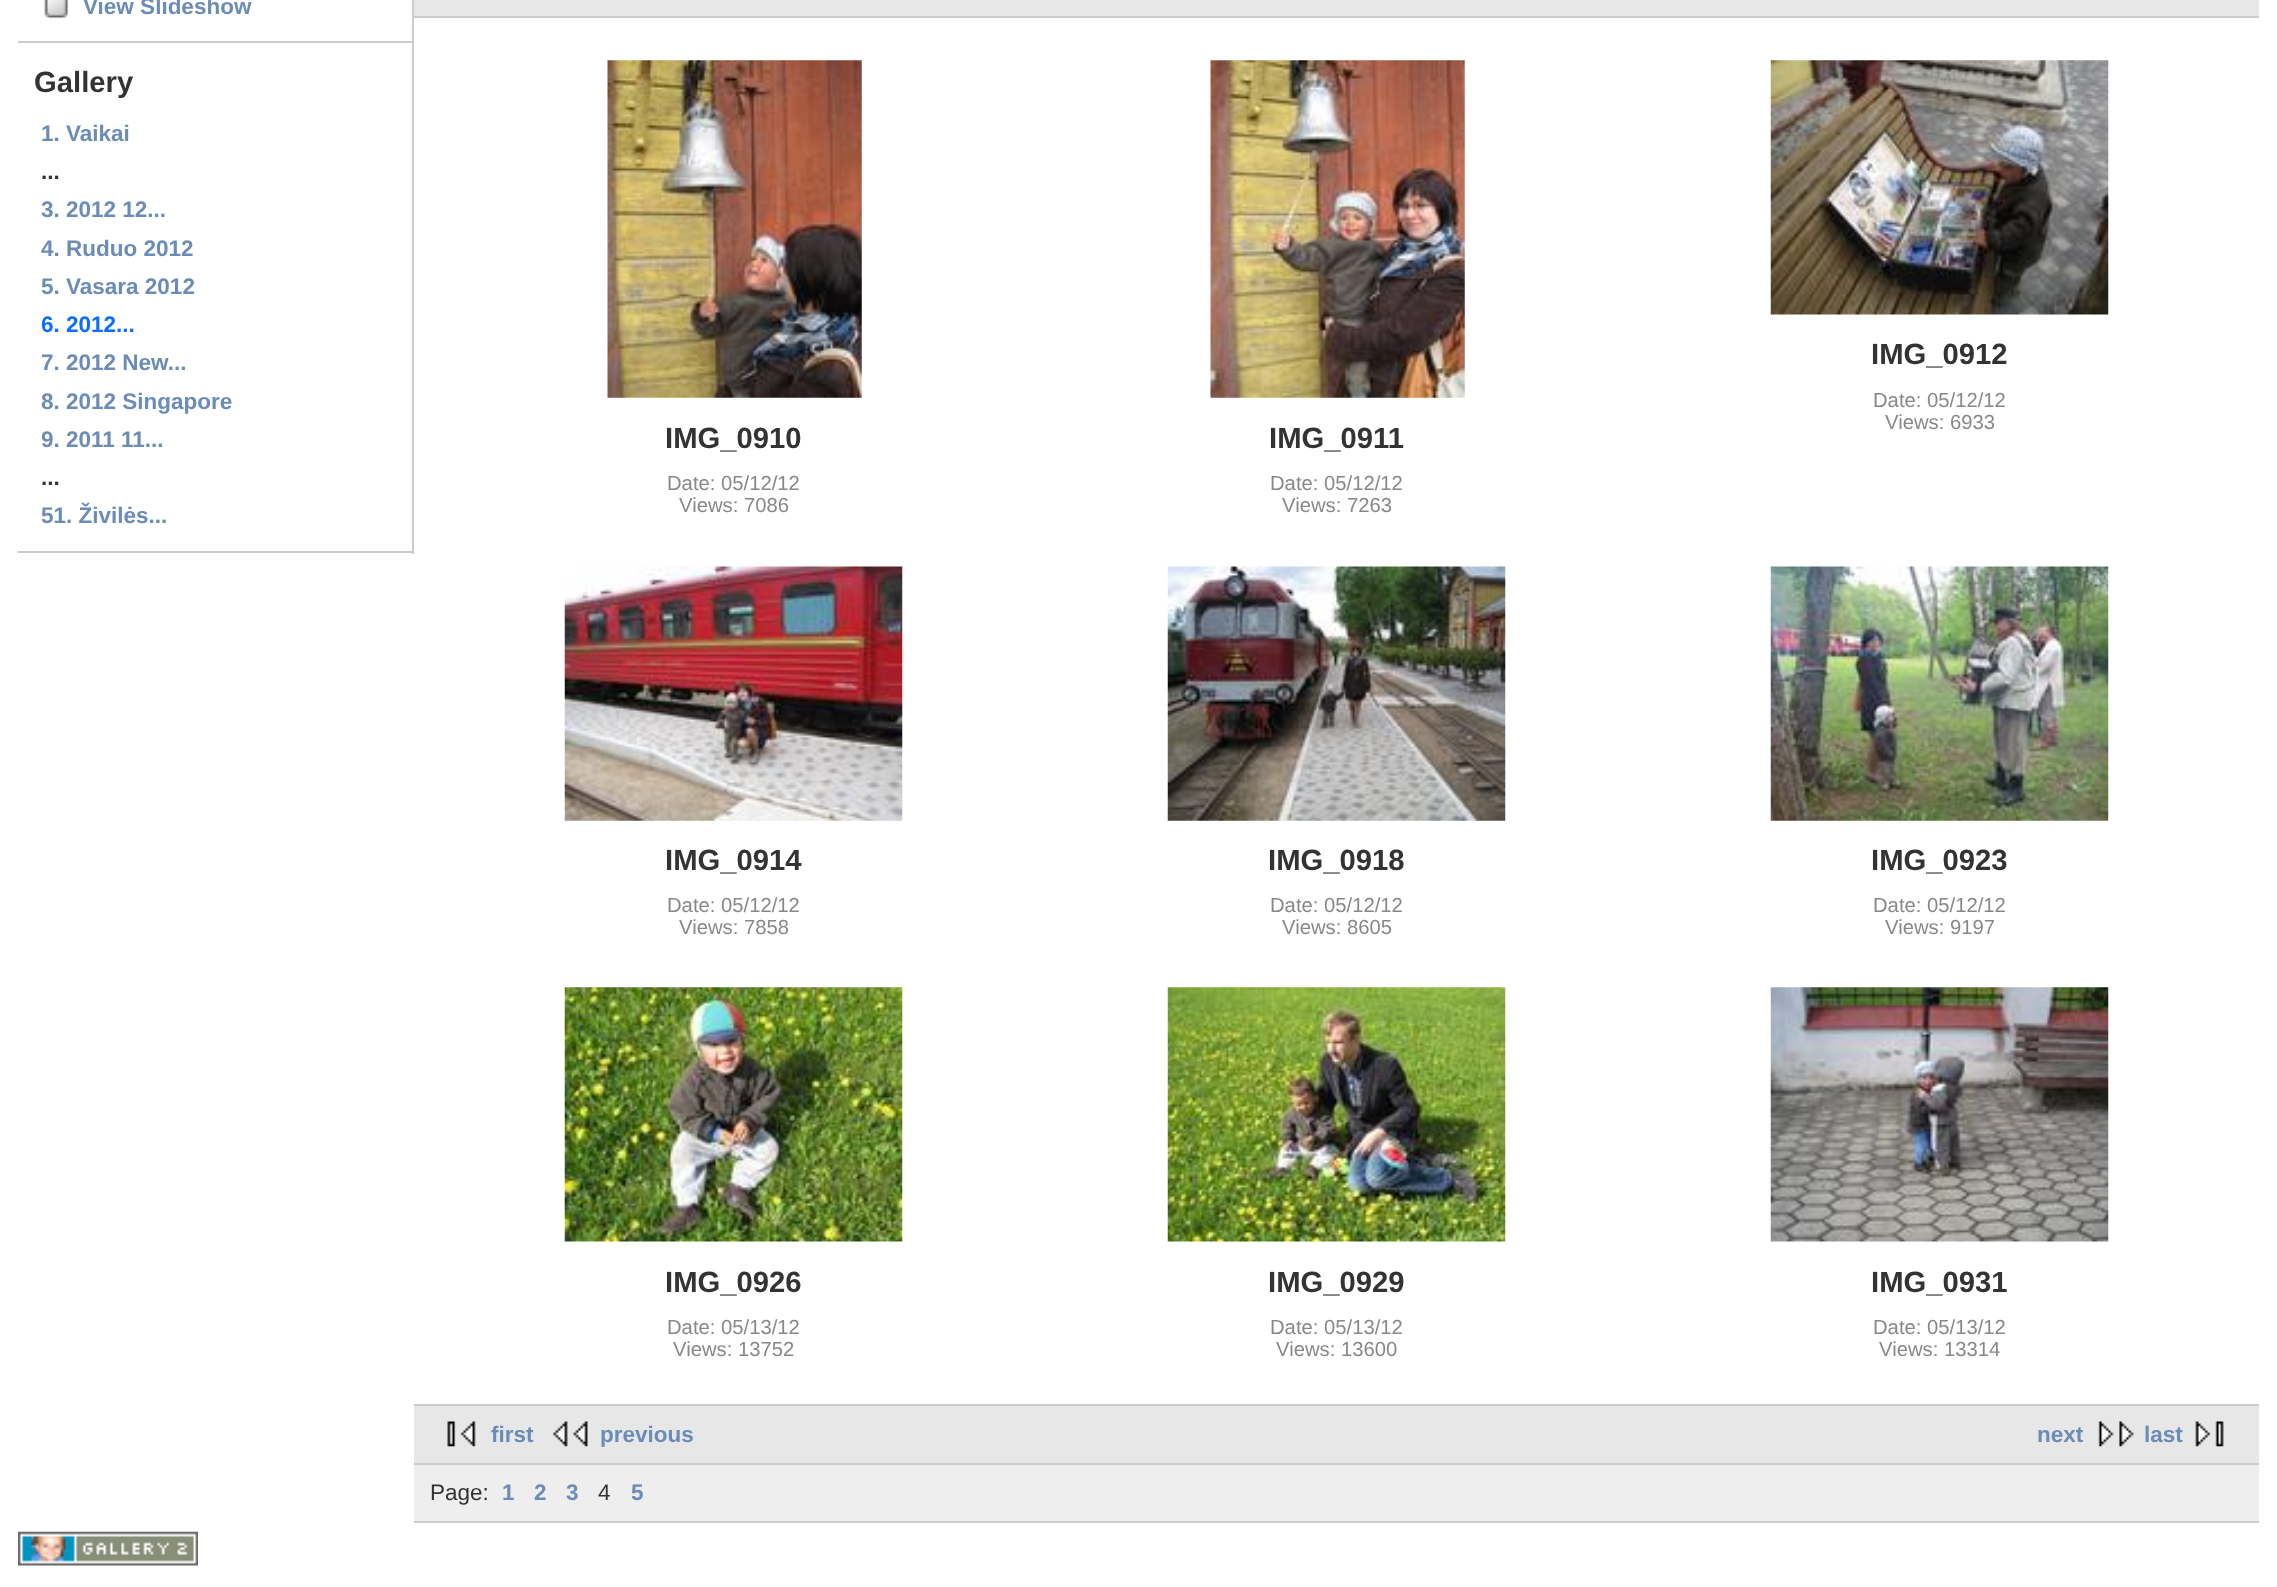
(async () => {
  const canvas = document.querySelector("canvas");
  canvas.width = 2277;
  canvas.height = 1587;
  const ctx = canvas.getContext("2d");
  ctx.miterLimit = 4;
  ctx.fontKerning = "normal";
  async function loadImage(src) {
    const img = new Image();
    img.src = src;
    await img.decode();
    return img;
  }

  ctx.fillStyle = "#ffffff";
  ctx.fillRect(0, 0, 2277, 1587);
  ctx.fillStyle = "#cccccc";
  ctx.fillRect(412, 0, 2, 554);
  ctx.fillRect(18, 41, 394, 2);
  ctx.drawImage(await loadImage("img/1.png"), 44, 0, 25, 19);
  for (const [x, y, w, h, color] of [
    [18, 551, 394, 2, "#cccccc"],
    [414, 0, 1845, 16, "#e7e7e7"],
    [414, 16, 1845, 2, "#cccccc"],
    [414, 1404, 1845, 2, "#cccccc"],
  ]) {
    ctx.fillStyle = color;
    ctx.fillRect(x, y, w, h);
  }
  ctx.drawImage(await loadImage("img/2.png"), 1770, 60, 339, 255);
  ctx.drawImage(await loadImage("img/3.png"), 607, 60, 255, 338);
  ctx.drawImage(await loadImage("img/4.png"), 1210, 60, 255, 338);
  ctx.drawImage(await loadImage("img/5.png"), 564, 566, 339, 255);
  ctx.drawImage(await loadImage("img/6.png"), 1167, 566, 339, 255);
  ctx.drawImage(await loadImage("img/7.png"), 1770, 566, 339, 255);
  ctx.drawImage(await loadImage("img/8.png"), 564, 987, 339, 255);
  ctx.drawImage(await loadImage("img/9.png"), 1167, 987, 339, 255);
  ctx.drawImage(await loadImage("img/10.png"), 1770, 987, 339, 255);
  ctx.fillStyle = "#e7e7e7";
  ctx.fillRect(414, 1406, 1845, 57);
  ctx.fillStyle = "#cccccc";
  ctx.fillRect(414, 1463, 1845, 2);
  ctx.drawImage(await loadImage("img/11.png"), 447, 1421, 29, 26);
  ctx.drawImage(await loadImage("img/12.png"), 553, 1421, 35, 26);
  ctx.drawImage(await loadImage("img/13.png"), 2098, 1421, 36, 26);
  ctx.drawImage(await loadImage("img/14.png"), 2195, 1421, 29, 26);
  ctx.fillStyle = "#eeeeee";
  ctx.fillRect(414, 1465, 1845, 56);
  ctx.fillStyle = "#cccccc";
  ctx.fillRect(414, 1521, 1845, 2);
  ctx.drawImage(await loadImage("img/15.png"), 18, 1531, 180, 35);
  ctx.font = "bold 22.5px Liberation Sans";
  ctx.fillStyle = "#6b8cb7";
  ctx.fillText("View Slideshow", 83, 14);
  ctx.font = "bold 29.25px Liberation Sans";
  ctx.fillStyle = "#333333";
  ctx.fillText("Gallery", 34, 92);
  ctx.font = "bold 22.5px Liberation Sans";
  ctx.fillStyle = "#6b8cb7";
  ctx.fillText("1. Vaikai", 41, 141);
  ctx.fillStyle = "#333333";
  ctx.fillText("...", 41, 179);
  ctx.fillStyle = "#6b8cb7";
  for (const [text, x, y] of [
    ["3. 2012 12...", 41, 217],
    ["4. Ruduo 2012", 41, 256],
    ["5. Vasara 2012", 41, 294],
  ]) {
    ctx.fillText(text, x, y);
  }
  ctx.fillStyle = "#0b6cff";
  ctx.fillText("6. 2012...", 41, 332);
  ctx.fillStyle = "#6b8cb7";
  for (const [text, x, y] of [
    ["7. 2012 New...", 41, 370],
    ["8. 2012 Singapore", 41, 409],
    ["9. 2011 11...", 41, 447],
  ]) {
    ctx.fillText(text, x, y);
  }
  ctx.fillStyle = "#333333";
  ctx.fillText("...", 41, 485);
  ctx.fillStyle = "#6b8cb7";
  ctx.fillText("51. Živilės...", 41, 523);
  ctx.font = "bold 29.25px Liberation Sans";
  ctx.fillStyle = "#333333";
  ctx.fillText("IMG_0912", 1871, 364);
  ctx.font = "20.25px Liberation Sans";
  ctx.fillStyle = "#888888";
  ctx.fillText("Date: 05/12/12", 1873, 407);
  ctx.fillText("Views: 6933", 1885, 429);
  ctx.font = "bold 29.25px Liberation Sans";
  ctx.fillStyle = "#333333";
  ctx.fillText("IMG_0910", 665, 448);
  ctx.font = "20.25px Liberation Sans";
  ctx.fillStyle = "#888888";
  ctx.fillText("Date: 05/12/12", 667, 490);
  ctx.fillText("Views: 7086", 679, 512);
  ctx.font = "bold 29.25px Liberation Sans";
  ctx.fillStyle = "#333333";
  ctx.fillText("IMG_0911", 1269, 448);
  ctx.font = "20.25px Liberation Sans";
  ctx.fillStyle = "#888888";
  ctx.fillText("Date: 05/12/12", 1270, 490);
  ctx.fillText("Views: 7263", 1282, 512);
  ctx.font = "bold 29.25px Liberation Sans";
  ctx.fillStyle = "#333333";
  ctx.fillText("IMG_0914", 665, 870);
  ctx.font = "20.25px Liberation Sans";
  ctx.fillStyle = "#888888";
  ctx.fillText("Date: 05/12/12", 667, 912);
  ctx.fillText("Views: 7858", 679, 934);
  ctx.font = "bold 29.25px Liberation Sans";
  ctx.fillStyle = "#333333";
  ctx.fillText("IMG_0918", 1268, 870);
  ctx.font = "20.25px Liberation Sans";
  ctx.fillStyle = "#888888";
  ctx.fillText("Date: 05/12/12", 1270, 912);
  ctx.fillText("Views: 8605", 1282, 934);
  ctx.font = "bold 29.25px Liberation Sans";
  ctx.fillStyle = "#333333";
  ctx.fillText("IMG_0923", 1871, 870);
  ctx.font = "20.25px Liberation Sans";
  ctx.fillStyle = "#888888";
  ctx.fillText("Date: 05/12/12", 1873, 912);
  ctx.fillText("Views: 9197", 1885, 934);
  ctx.font = "bold 29.25px Liberation Sans";
  ctx.fillStyle = "#333333";
  ctx.fillText("IMG_0926", 665, 1292);
  ctx.font = "20.25px Liberation Sans";
  ctx.fillStyle = "#888888";
  ctx.fillText("Date: 05/13/12", 667, 1334);
  ctx.fillText("Views: 13752", 673, 1356);
  ctx.font = "bold 29.25px Liberation Sans";
  ctx.fillStyle = "#333333";
  ctx.fillText("IMG_0929", 1268, 1292);
  ctx.font = "20.25px Liberation Sans";
  ctx.fillStyle = "#888888";
  ctx.fillText("Date: 05/13/12", 1270, 1334);
  ctx.fillText("Views: 13600", 1276, 1356);
  ctx.font = "bold 29.25px Liberation Sans";
  ctx.fillStyle = "#333333";
  ctx.fillText("IMG_0931", 1871, 1292);
  ctx.font = "20.25px Liberation Sans";
  ctx.fillStyle = "#888888";
  ctx.fillText("Date: 05/13/12", 1873, 1334);
  ctx.fillText("Views: 13314", 1879, 1356);
  ctx.font = "bold 22.5px Liberation Sans";
  ctx.fillStyle = "#6b8cb7";
  for (const [text, x, y] of [
    ["first", 491, 1442],
    ["previous", 600, 1442],
    ["next", 2037, 1442],
    ["last", 2144, 1442],
  ]) {
    ctx.fillText(text, x, y);
  }
  ctx.font = "22.5px Liberation Sans";
  ctx.fillStyle = "#333333";
  ctx.fillText("Page:", 430, 1500);
  ctx.font = "bold 22.5px Liberation Sans";
  ctx.fillStyle = "#6b8cb7";
  for (const [text, x, y] of [
    ["1", 502, 1500],
    ["2", 534, 1500],
    ["3", 566, 1500],
  ]) {
    ctx.fillText(text, x, y);
  }
  ctx.font = "22.5px Liberation Sans";
  ctx.fillStyle = "#333333";
  ctx.fillText("4", 598, 1500);
  ctx.font = "bold 22.5px Liberation Sans";
  ctx.fillStyle = "#6b8cb7";
  ctx.fillText("5", 631, 1500);
})();
